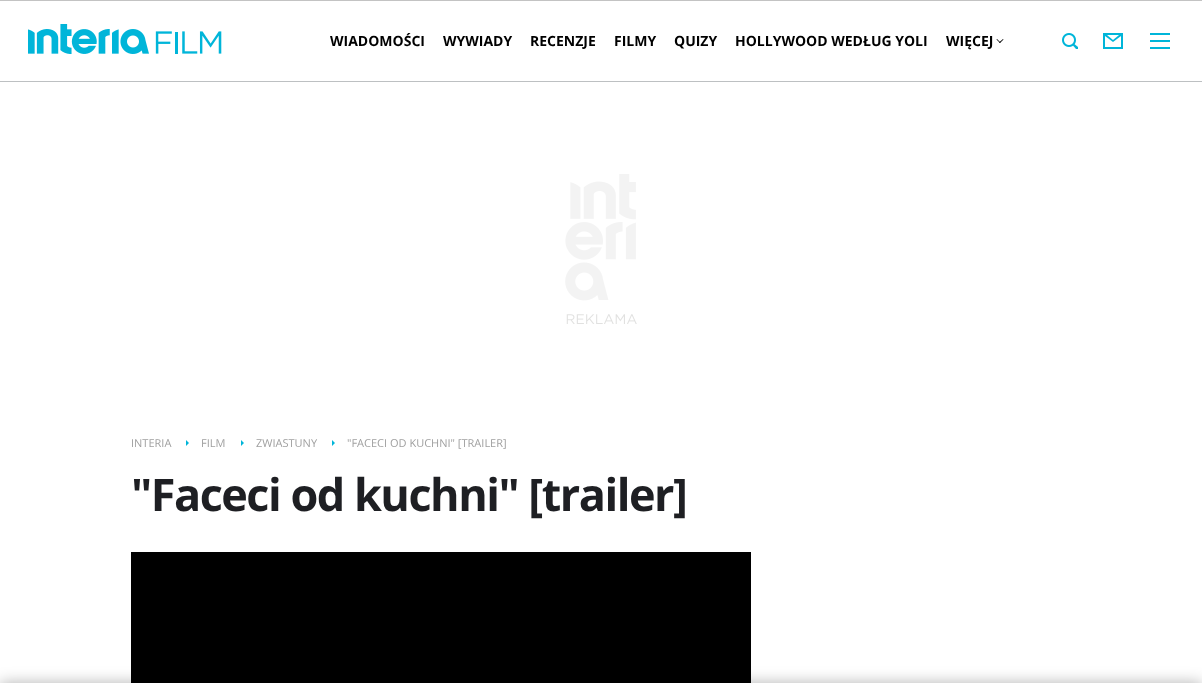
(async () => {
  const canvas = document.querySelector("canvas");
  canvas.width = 1202;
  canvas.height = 683;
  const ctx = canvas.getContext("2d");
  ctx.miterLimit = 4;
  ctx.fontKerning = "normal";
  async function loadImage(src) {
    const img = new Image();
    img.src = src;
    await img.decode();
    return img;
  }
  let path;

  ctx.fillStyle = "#ffffff";
  ctx.fillRect(0, 0, 1202, 683);
  ctx.fillStyle = "#c3c3c3";
  ctx.fillRect(0, 0, 1202, 1);
  ctx.fillStyle = "#bdc0c2";
  ctx.fillRect(0, 81, 1202, 1);
  ctx.drawImage(await loadImage("img/1.png"), 28, 24, 121, 30);
  ctx.drawImage(await loadImage("img/2.png"), 155, 31, 67, 23);
  ctx.fillStyle = "#000000";
  path = new Path2D("M1003 39L1003.5 39.5L1000 43L999 42.5Z");
  ctx.fill(path);
  path = new Path2D("M997 39L1000.5 42.5L1000 43L996.5 39.5Z");
  ctx.fill(path);
  ctx.drawImage(await loadImage("img/3.png"), 1062, 33, 16, 16);
  ctx.drawImage(await loadImage("img/4.png"), 1103, 33, 20, 16);
  ctx.drawImage(await loadImage("img/5.png"), 1150, 33, 20, 16);
  ctx.drawImage(await loadImage("img/6.png"), 565, 174, 72, 150);
  ctx.fillStyle = "#00b5d9";
  path = new Path2D("M186 446V440L189 443Z");
  ctx.fill(path);
  path = new Path2D("M241 446V440L244 443Z");
  ctx.fill(path);
  path = new Path2D("M332 446V440L335 443Z");
  ctx.fill(path);
  ctx.fillStyle = "#000000";
  ctx.fillRect(131, 552, 620, 131);
  ctx.fillStyle = "rgba(0, 0, 0, 0.3)";
  ctx.filter = "blur(7.5px)";
  ctx.beginPath();
  ctx.rect(0, 683, 1202, 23);
  ctx.fill();
  ctx.filter = "none";
  ctx.font = "bold 14px Open Sans";
  ctx.fillStyle = "#000000";
  for (const [text, x, y] of [
    ["WIADOMOŚCI", 330, 46],
    ["WYWIADY", 443, 46],
    ["RECENZJE", 530, 46],
    ["FILMY", 614, 46],
    ["QUIZY", 674, 46],
    ["HOLLYWOOD WEDŁUG YOLI", 735, 46],
    ["WIĘCEJ", 946, 46],
  ]) {
    ctx.fillText(text, x, y);
  }
  ctx.font = "11px Open Sans";
  ctx.fillStyle = "#a0a0a0";
  for (const [text, x, y] of [
    ["INTERIA", 131, 447],
    ["FILM", 201, 447],
    ["ZWIASTUNY", 256, 447],
    ["\"FACECI OD KUCHNI\" [TRAILER]", 347, 447],
  ]) {
    ctx.fillText(text, x, y);
  }
  ctx.letterSpacing = "-1.5px";
  ctx.font = "bold 45px Open Sans";
  ctx.fillStyle = "#1e1f23";
  ctx.fillText("\"Faceci od kuchni\" [trailer]", 131, 511);
})();
